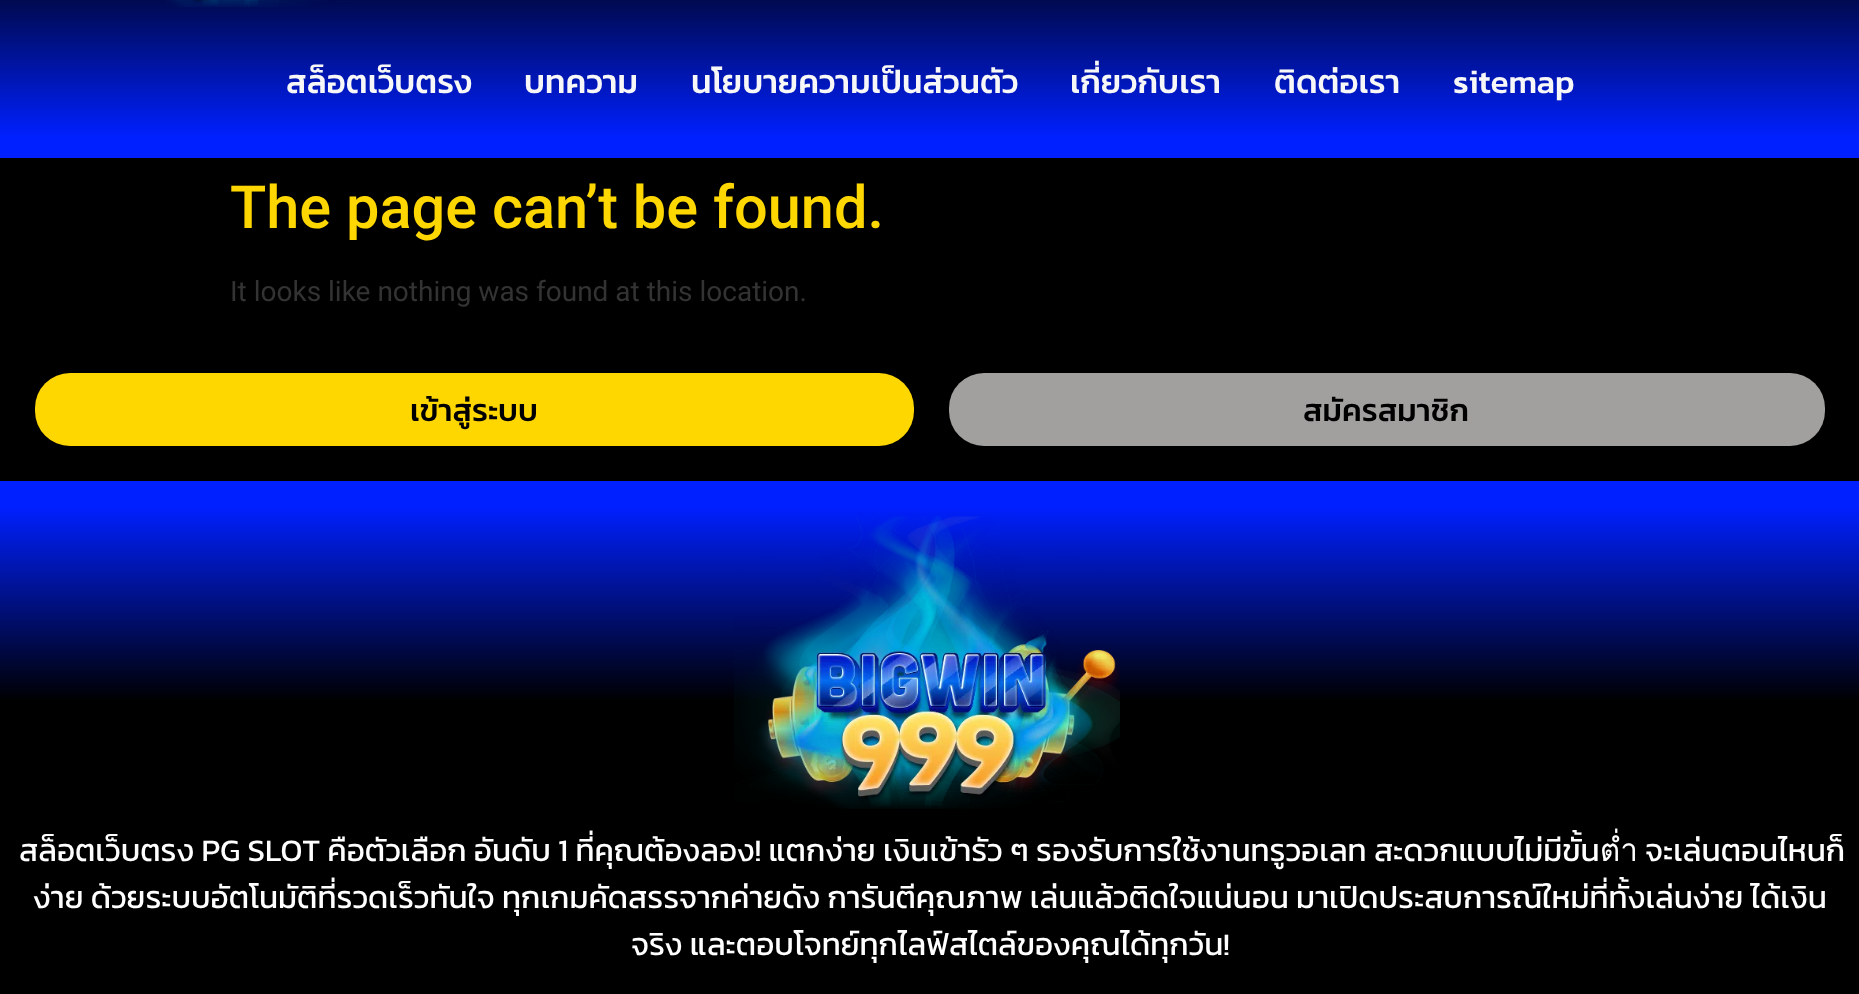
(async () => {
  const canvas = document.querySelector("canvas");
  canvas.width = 1859;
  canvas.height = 994;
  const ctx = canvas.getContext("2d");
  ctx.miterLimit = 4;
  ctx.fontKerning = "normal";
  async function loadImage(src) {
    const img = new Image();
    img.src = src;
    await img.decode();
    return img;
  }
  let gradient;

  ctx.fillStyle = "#000000";
  ctx.fillRect(0, 0, 1859, 994);
  gradient = ctx.createLinearGradient(930, -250, 930, 158);
  gradient.addColorStop(0.46, "#000000");
  gradient.addColorStop(0.95, "#0020ff");
  ctx.fillStyle = gradient;
  ctx.fillRect(0, 0, 1859, 158);
  ctx.drawImage(await loadImage("img/1.png"), 167, 0, 183, 7);
  ctx.fillStyle = "#ffd700";
  ctx.beginPath();
  ctx.roundRect(35, 373, 879, 73, 35);
  ctx.fill();
  ctx.fillStyle = "#a2a09e";
  ctx.beginPath();
  ctx.roundRect(949, 373, 876, 73, 35);
  ctx.fill();
  gradient = ctx.createLinearGradient(930, 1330, 930, 481);
  gradient.addColorStop(0.74, "#000000");
  gradient.addColorStop(0.97, "#0020ff");
  ctx.fillStyle = gradient;
  ctx.fillRect(0, 481, 1859, 219);
  ctx.drawImage(await loadImage("img/2.png"), 734, 516, 386, 293);
  ctx.font = "500 33.25px Kanit";
  ctx.fillStyle = "#f7f7f7";
  for (const [text, x, y] of [
    ["สล็อตเว็บตรง", 286, 93],
    ["บทความ", 524, 93],
    ["นโยบายความเป็นส่วนตัว", 691, 93],
    ["เกี่ยวกับเรา", 1070, 93],
    ["ติดต่อเรา", 1274, 93],
    ["sitemap", 1453, 93],
  ]) {
    ctx.fillText(text, x, y);
  }
  ctx.font = "500 59.5px Roboto";
  ctx.fillStyle = "#ffd700";
  ctx.fillText("The page can’t be found.", 230, 228);
  ctx.font = "28px Roboto";
  ctx.fillStyle = "#333333";
  ctx.fillText("It looks like nothing was found at this location.", 230, 301);
  ctx.font = "500 31.5px Kanit";
  ctx.fillStyle = "#000000";
  ctx.fillText("เข้าสู่ระบบ", 410, 421);
  ctx.fillText("สมัครสมาชิก", 1303, 421);
  ctx.font = "31.5px Kanit";
  ctx.fillStyle = "#ffffff";
  for (const [text, x, y] of [
    ["สล็อตเว็บตรง PG SLOT คือตัวเลือก อันดับ 1 ที่คุณต้องลอง! แตกง่าย เงินเข้ารัว ๆ รองรับการใช้งานทรูวอเลท สะดวกแบบไม่มีขั้นต่ำ จะเล่นตอนไหนก็", 19, 861],
    ["ง่าย ด้วยระบบอัตโนมัติที่รวดเร็วทันใจ ทุกเกมคัดสรรจากค่ายดัง การันตีคุณภาพ เล่นแล้วติดใจแน่นอน มาเปิดประสบการณ์ใหม่ที่ทั้งเล่นง่าย ได้เงิน", 33, 908],
    ["จริง และตอบโจทย์ทุกไลฟ์สไตล์ของคุณได้ทุกวัน!", 631, 955],
  ]) {
    ctx.fillText(text, x, y);
  }
})();
